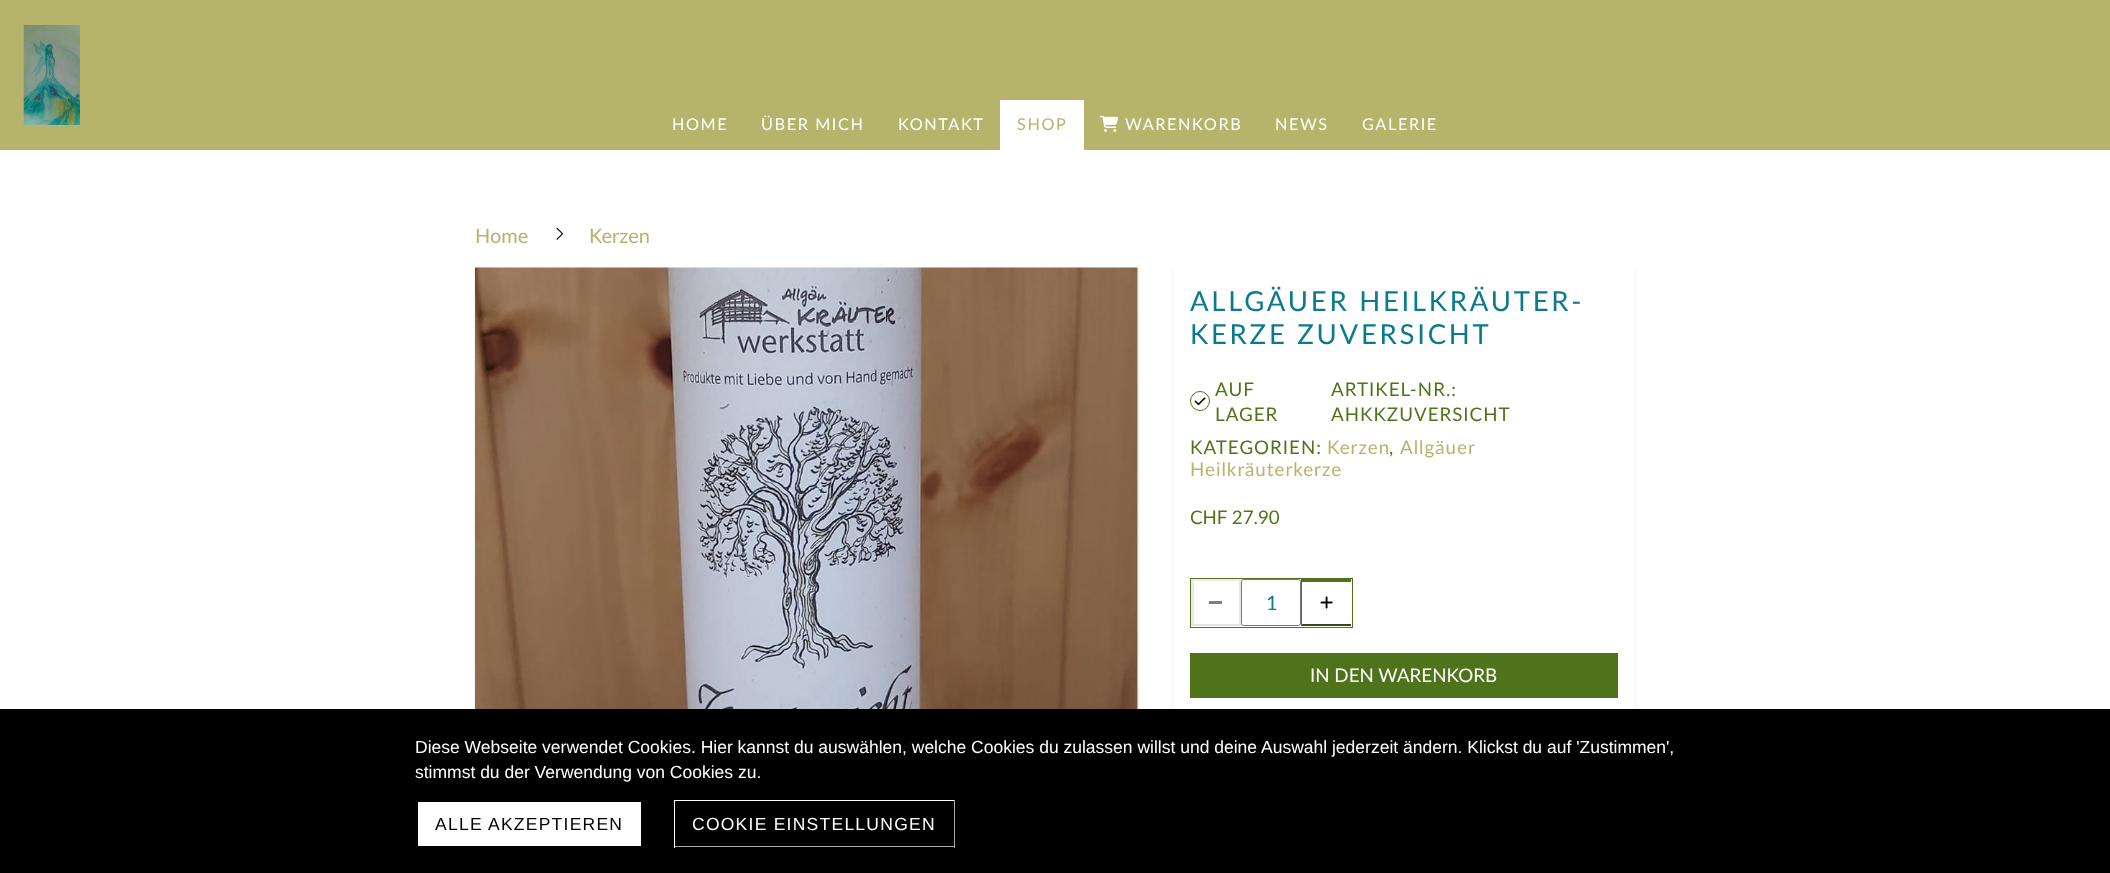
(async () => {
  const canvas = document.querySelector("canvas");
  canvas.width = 2110;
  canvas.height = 873;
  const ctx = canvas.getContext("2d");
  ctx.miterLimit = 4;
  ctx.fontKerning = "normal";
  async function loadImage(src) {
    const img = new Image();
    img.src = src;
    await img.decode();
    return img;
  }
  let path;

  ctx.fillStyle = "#ffffff";
  ctx.fillRect(0, 0, 2110, 873);
  ctx.fillStyle = "#b6b36b";
  ctx.fillRect(0, 0, 2110, 150);
  ctx.drawImage(await loadImage("img/1.png"), 23, 25, 57, 100);
  ctx.fillStyle = "#ffffff";
  ctx.fillRect(1000, 100, 84, 50);
  ctx.drawImage(await loadImage("img/2.png"), 1100, 115, 19, 17);
  ctx.drawImage(await loadImage("img/3.png"), 556, 227, 7, 13);
  ctx.fillStyle = "rgba(30, 19, 12, 0.15)";
  ctx.filter = "blur(1px)";
  ctx.beginPath();
  ctx.rect(475, 269, 663, 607);
  ctx.fill();
  ctx.filter = "none";
  ctx.fillStyle = "#ffffff";
  ctx.fillRect(1137, 268, 1, 441);
  ctx.drawImage(await loadImage("img/4.png"), 475, 267, 663, 442);
  ctx.save();
  path = new Path2D("M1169 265H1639V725H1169ZM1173 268H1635V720H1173Z");
  ctx.clip(path, "evenodd");
  ctx.fillStyle = "rgba(30, 19, 12, 0.15)";
  ctx.filter = "blur(1px)";
  ctx.beginPath();
  ctx.rect(1173, 269, 462, 452);
  ctx.fill();
  ctx.filter = "none";
  ctx.restore();
  ctx.beginPath();
  ctx.arc(1200, 401, 9.5, 0, Math.PI * 2);
  ctx.strokeStyle = "#4f731b";
  ctx.stroke();
  ctx.drawImage(await loadImage("img/5.png"), 1194, 397, 12, 9);
  ctx.strokeRect(1190.5, 578.5, 162, 49);
  ctx.fillStyle = "#ebebeb";
  path = new Path2D("M1191 579H1241L1239 581H1194Z");
  ctx.fill(path);
  ctx.fillStyle = "rgba(167, 167, 167, 0.3)";
  path = new Path2D("M1241 579V626L1239 624V581Z");
  ctx.fill(path);
  path = new Path2D("M1241 626H1191L1194 624H1239Z");
  ctx.fill(path);
  ctx.fillStyle = "rgba(187, 187, 187, 0.3)";
  path = new Path2D("M1191 626V579L1194 581V624Z");
  ctx.fill(path);
  ctx.fillStyle = "#808080";
  ctx.fillRect(1209, 601, 13, 3);
  ctx.beginPath();
  ctx.roundRect(1241.5, 579.5, 59, 46, 2);
  ctx.strokeStyle = "#767676";
  ctx.stroke();
  ctx.fillStyle = "#4f731b";
  ctx.fillRect(1301, 579, 50, 3);
  ctx.fillStyle = "#354d12";
  path = new Path2D("M1351 626H1301L1302 624H1351Z");
  ctx.fill(path);
  ctx.fillStyle = "#4f731b";
  path = new Path2D("M1301 626V579L1302 581V624Z");
  ctx.fill(path);
  ctx.drawImage(await loadImage("img/6.png"), 1320, 596, 13, 13);
  for (const [x, y, w, h, color] of [
    [1190, 653, 428, 45, "#4f731b"],
    [0, 709, 2110, 164, "#000000"],
    [418, 802, 223, 44, "#ffffff"],
    [674, 800, 281, 1, "#ffffff"],
    [954, 800, 1, 48, "#aaaaaa"],
    [674, 846, 281, 1, "#aaaaaa"],
    [674, 800, 1, 48, "#ffffff"],
  ]) {
    ctx.fillStyle = color;
    ctx.fillRect(x, y, w, h);
  }
  ctx.letterSpacing = "1.6px";
  ctx.font = "16.25px Lato";
  for (const [text, x, y] of [
    ["HOME", 672, 130],
    ["ÜBER MICH", 761, 130],
    ["KONTAKT", 898, 130],
  ]) {
    ctx.fillText(text, x, y);
  }
  ctx.fillStyle = "#b6b36b";
  ctx.fillText("SHOP", 1017, 130);
  ctx.fillStyle = "#ffffff";
  for (const [text, x, y] of [
    ["WARENKORB", 1125, 130],
    ["NEWS", 1275, 130],
    ["GALERIE", 1362, 130],
  ]) {
    ctx.fillText(text, x, y);
  }
  ctx.letterSpacing = "0px";
  ctx.font = "20px Lato";
  ctx.fillStyle = "#b6b36b";
  ctx.fillText("Home", 475, 243);
  ctx.fillText("Kerzen", 589, 243);
  ctx.letterSpacing = "2.75px";
  ctx.font = "27.5px Lato";
  ctx.fillStyle = "#0a7b8c";
  ctx.fillText("ALLGÄUER HEILKRÄUTER-", 1190, 311);
  ctx.fillText("KERZE ZUVERSICHT", 1190, 344);
  ctx.letterSpacing = "1px";
  ctx.font = "18.75px Lato";
  ctx.fillStyle = "#4f731b";
  for (const [text, x, y] of [
    ["AUF", 1215, 396],
    ["LAGER", 1215, 421],
    ["ARTIKEL-NR.:", 1331, 396],
    ["AHKKZUVERSICHT", 1331, 421],
    ["KATEGORIEN:", 1190, 454],
  ]) {
    ctx.fillText(text, x, y);
  }
  ctx.fillStyle = "#b6b36b";
  ctx.fillText("Kerzen", 1327, 454);
  ctx.fillStyle = "#4f731b";
  ctx.fillText(",", 1389, 454);
  ctx.fillStyle = "#b6b36b";
  ctx.fillText("Allgäuer", 1400, 454);
  ctx.fillText("Heilkräuterkerze", 1190, 476);
  ctx.letterSpacing = "0px";
  ctx.fillStyle = "#4f731b";
  ctx.fillText("CHF 27.90", 1190, 524);
  ctx.font = "20px Lato";
  ctx.fillStyle = "#0a7b8c";
  ctx.fillText("1", 1266, 610);
  ctx.font = "18.75px Lato";
  ctx.fillStyle = "#ffffff";
  ctx.fillText("IN DEN WARENKORB", 1310, 682);
  ctx.font = "17.5px Liberation Sans";
  ctx.fillText("Diese Webseite verwendet Cookies. Hier kannst du auswählen, welche Cookies du zulassen willst und deine Auswahl jederzeit ändern. Klickst du auf 'Zustimmen',", 415, 753);
  ctx.fillText("stimmst du der Verwendung von Cookies zu.", 415, 778);
  ctx.letterSpacing = "1.25px";
  ctx.fillStyle = "#000000";
  ctx.fillText("ALLE AKZEPTIEREN", 435, 830);
  ctx.fillStyle = "#ffffff";
  ctx.fillText("COOKIE EINSTELLUNGEN", 692, 830);
})();
